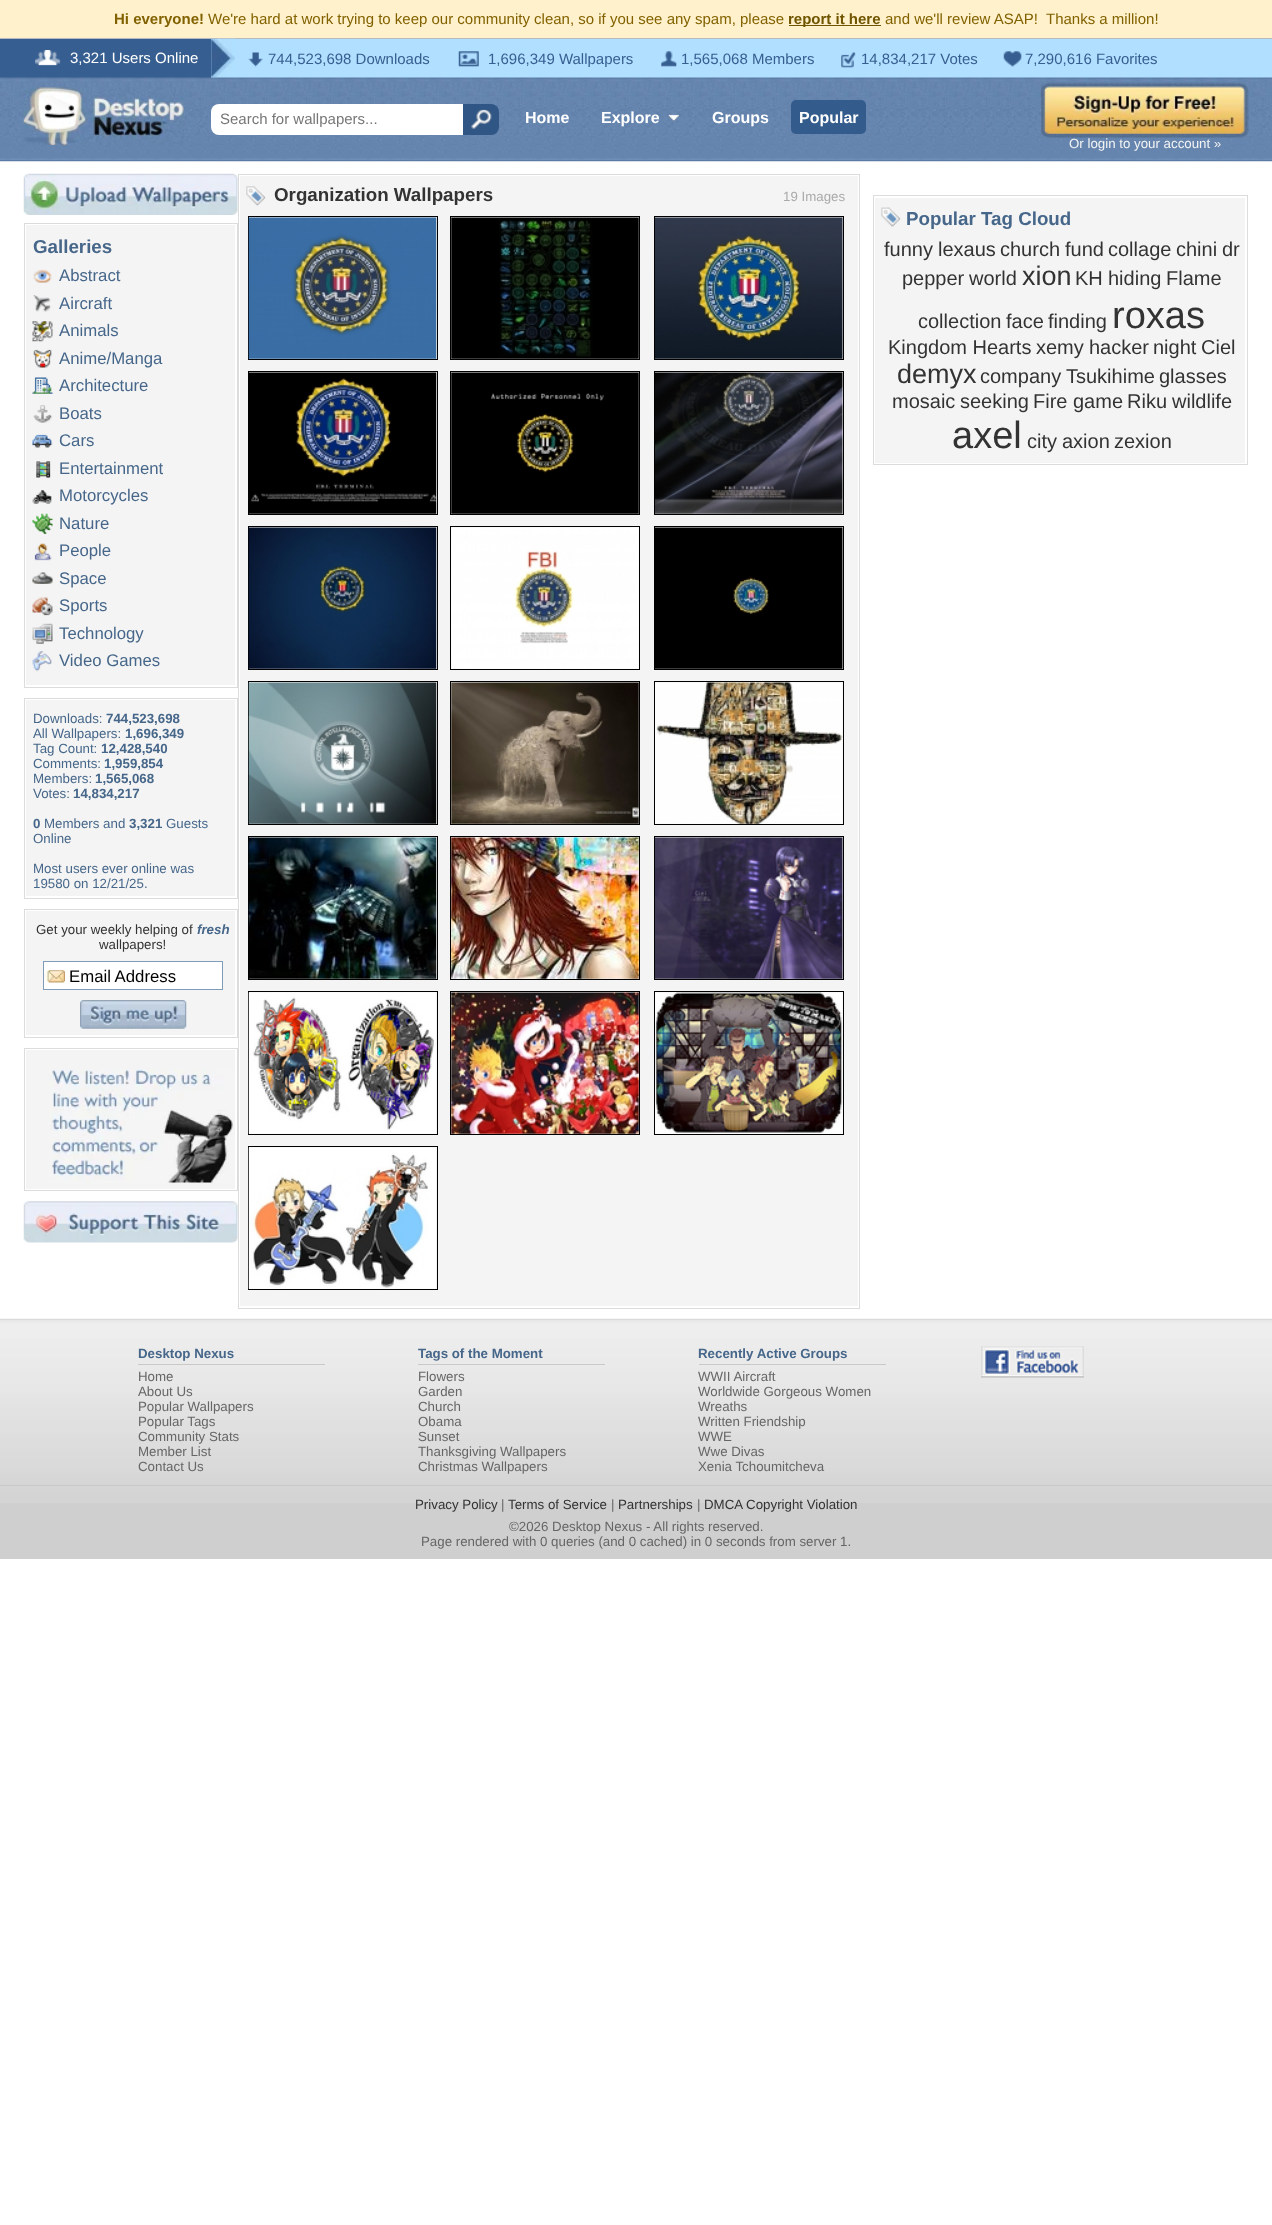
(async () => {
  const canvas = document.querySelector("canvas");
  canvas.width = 1272;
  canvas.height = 2225;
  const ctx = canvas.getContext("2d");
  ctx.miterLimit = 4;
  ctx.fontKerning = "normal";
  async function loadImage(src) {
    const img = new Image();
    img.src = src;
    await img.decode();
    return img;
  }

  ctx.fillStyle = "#ffffff";
  ctx.fillRect(0, 0, 1272, 2225);
  for (const [x, y, w, h, color] of [
    [0, 0, 1272, 38, "#fff1cb"],
    [789, 25, 92, 1, "#705500"],
    [211, 39, 1061, 39, "#b1dfff"],
    [0, 38, 1272, 1, "#b6bac0"],
    [0, 39, 211, 39, "#375e90"],
  ]) {
    ctx.fillStyle = color;
    ctx.fillRect(x, y, w, h);
  }
  ctx.drawImage(await loadImage("img/1.png"), 35, 50, 26, 16);
  ctx.drawImage(await loadImage("img/2.png"), 211, 38, 24, 40);
  ctx.drawImage(await loadImage("img/3.png"), 248, 52, 15, 15);
  ctx.drawImage(await loadImage("img/4.png"), 458, 51, 21, 16);
  ctx.drawImage(await loadImage("img/5.png"), 661, 51, 16, 16);
  ctx.drawImage(await loadImage("img/6.png"), 841, 52, 15, 16);
  ctx.drawImage(await loadImage("img/7.png"), 1003, 51, 19, 16);
  ctx.drawImage(await loadImage("img/8.png"), 0, 77, 1272, 85);
  ctx.drawImage(await loadImage("img/9.png"), 23, 87, 161, 58);
  ctx.fillStyle = "#ffffff";
  ctx.beginPath();
  ctx.roundRect(211, 104, 272, 31, [8, 0, 0, 8]);
  ctx.fill();
  ctx.fillStyle = "#305686";
  ctx.beginPath();
  ctx.roundRect(463, 104, 36, 31, [0, 8, 8, 0]);
  ctx.fill();
  ctx.drawImage(await loadImage("img/10.png"), 471, 109, 21, 20);
  ctx.drawImage(await loadImage("img/11.png"), 667, 114, 13, 8);
  ctx.fillStyle = "#335b8b";
  ctx.beginPath();
  ctx.roundRect(791, 100, 75, 34, 5);
  ctx.fill();
  ctx.drawImage(await loadImage("img/12.png"), 1041, 82, 208, 56);
  ctx.strokeStyle = "#dcdcdc";
  ctx.strokeRect(238.5, 174.5, 621, 1134);
  ctx.fillStyle = "#f4f4f4";
  ctx.fillRect(240, 176, 618, 1130);
  ctx.drawImage(await loadImage("img/13.png"), 246, 186, 20, 20);
  ctx.strokeStyle = "#000000";
  ctx.strokeRect(248.5, 216.5, 189, 143);
  ctx.drawImage(await loadImage("img/14.png"), 248, 217, 189, 142);
  ctx.strokeRect(450.5, 216.5, 189, 143);
  ctx.drawImage(await loadImage("img/15.png"), 451, 217, 188, 142);
  ctx.strokeRect(654.5, 216.5, 189, 143);
  ctx.drawImage(await loadImage("img/16.png"), 655, 217, 188, 142);
  ctx.strokeRect(248.5, 371.5, 189, 143);
  ctx.drawImage(await loadImage("img/17.png"), 249, 372, 188, 142);
  ctx.strokeRect(450.5, 371.5, 189, 143);
  ctx.drawImage(await loadImage("img/18.png"), 451, 372, 188, 142);
  ctx.strokeRect(654.5, 371.5, 189, 143);
  ctx.drawImage(await loadImage("img/19.png"), 655, 372, 188, 142);
  ctx.strokeRect(248.5, 526.5, 189, 143);
  ctx.drawImage(await loadImage("img/20.png"), 248, 527, 189, 142);
  ctx.strokeRect(450.5, 526.5, 189, 143);
  ctx.drawImage(await loadImage("img/21.png"), 451, 527, 188, 142);
  ctx.strokeRect(654.5, 526.5, 189, 143);
  ctx.drawImage(await loadImage("img/22.png"), 655, 527, 188, 142);
  ctx.strokeRect(248.5, 681.5, 189, 143);
  ctx.drawImage(await loadImage("img/23.png"), 248, 682, 189, 142);
  ctx.strokeRect(450.5, 681.5, 189, 143);
  ctx.drawImage(await loadImage("img/24.png"), 451, 682, 188, 142);
  ctx.strokeRect(654.5, 681.5, 189, 143);
  ctx.drawImage(await loadImage("img/25.png"), 655, 682, 188, 142);
  ctx.strokeRect(248.5, 836.5, 189, 143);
  ctx.drawImage(await loadImage("img/26.png"), 248, 837, 189, 142);
  ctx.strokeRect(450.5, 836.5, 189, 143);
  ctx.drawImage(await loadImage("img/27.png"), 451, 837, 188, 142);
  ctx.strokeRect(654.5, 836.5, 189, 143);
  ctx.drawImage(await loadImage("img/28.png"), 655, 837, 188, 142);
  ctx.strokeRect(248.5, 991.5, 189, 143);
  ctx.drawImage(await loadImage("img/29.png"), 248, 992, 188, 142);
  ctx.strokeRect(450.5, 991.5, 189, 143);
  ctx.drawImage(await loadImage("img/30.png"), 451, 992, 188, 142);
  ctx.strokeRect(654.5, 991.5, 189, 143);
  ctx.drawImage(await loadImage("img/31.png"), 655, 992, 188, 142);
  ctx.strokeRect(248.5, 1146.5, 189, 143);
  ctx.drawImage(await loadImage("img/32.png"), 248, 1147, 188, 142);
  ctx.drawImage(await loadImage("img/33.png"), 23, 173, 215, 42);
  ctx.strokeStyle = "#dcdcdc";
  ctx.strokeRect(24.5, 223.5, 213, 464);
  ctx.fillRect(26, 225, 209, 460);
  ctx.drawImage(await loadImage("img/34.png"), 33, 269, 19, 14);
  ctx.drawImage(await loadImage("img/35.png"), 33, 295, 18, 17);
  ctx.drawImage(await loadImage("img/36.png"), 32, 321, 21, 21);
  ctx.drawImage(await loadImage("img/37.png"), 33, 349, 19, 19);
  ctx.drawImage(await loadImage("img/38.png"), 32, 377, 21, 17);
  ctx.drawImage(await loadImage("img/39.png"), 33, 405, 19, 18);
  ctx.drawImage(await loadImage("img/40.png"), 32, 434, 21, 14);
  ctx.drawImage(await loadImage("img/41.png"), 36, 461, 15, 17);
  ctx.drawImage(await loadImage("img/42.png"), 32, 490, 20, 14);
  ctx.drawImage(await loadImage("img/43.png"), 32, 513, 21, 21);
  ctx.drawImage(await loadImage("img/44.png"), 34, 543, 18, 18);
  ctx.drawImage(await loadImage("img/45.png"), 32, 572, 21, 12);
  ctx.drawImage(await loadImage("img/46.png"), 32, 597, 21, 19);
  ctx.drawImage(await loadImage("img/47.png"), 32, 623, 21, 21);
  ctx.drawImage(await loadImage("img/48.png"), 32, 651, 20, 21);
  ctx.strokeRect(24.5, 698.5, 213, 200);
  ctx.fillRect(26, 700, 209, 196);
  ctx.strokeRect(24.5, 909.5, 213, 128);
  ctx.fillRect(26, 911, 209, 124);
  ctx.fillStyle = "#ffffff";
  ctx.fillRect(44, 962, 178, 27);
  ctx.drawImage(await loadImage("img/49.png"), 44, 970, 21, 13);
  ctx.strokeStyle = "#7f9db9";
  ctx.strokeRect(43.5, 961.5, 179, 28);
  ctx.drawImage(await loadImage("img/50.png"), 80, 1000, 107, 29);
  ctx.strokeStyle = "#dcdcdc";
  ctx.strokeRect(24.5, 1048.5, 213, 142);
  ctx.fillStyle = "#f4f4f4";
  ctx.fillRect(26, 1050, 209, 139);
  ctx.drawImage(await loadImage("img/51.png"), 49, 1069, 184, 114);
  ctx.drawImage(await loadImage("img/52.png"), 23, 1201, 215, 42);
  ctx.strokeRect(873.5, 195.5, 374, 269);
  ctx.fillRect(875, 198, 370, 265);
  ctx.drawImage(await loadImage("img/53.png"), 881, 207, 20, 20);
  ctx.fillStyle = "#cfcfcf";
  ctx.fillRect(0, 1503, 1272, 56);
  ctx.drawImage(await loadImage("img/54.png"), 0, 1318, 1272, 185);
  for (const [x, y, w, h, color] of [
    [138, 1364, 187, 1, "#c9c9c9"],
    [418, 1364, 187, 1, "#c9c9c9"],
    [699, 1364, 187, 1, "#c9c9c9"],
  ]) {
    ctx.fillStyle = color;
    ctx.fillRect(x, y, w, h);
  }
  ctx.drawImage(await loadImage("img/55.png"), 981, 1346, 103, 32);
  ctx.fillRect(0, 1485, 1272, 1);
  ctx.font = "bold 15px Liberation Sans";
  ctx.fillStyle = "#826200";
  ctx.fillText("Hi everyone!", 114, 24);
  ctx.font = "15px Liberation Sans";
  ctx.fillText("We're hard at work trying to keep our community clean, so if you see any spam, please", 208, 24);
  ctx.font = "bold 15px Liberation Sans";
  ctx.fillStyle = "#705500";
  ctx.fillText("report it here", 788, 24);
  ctx.font = "15px Liberation Sans";
  ctx.fillStyle = "#826200";
  ctx.fillText("and we'll review ASAP!  Thanks a million!", 885, 24);
  ctx.fillStyle = "#ffffff";
  ctx.fillText("3,321 Users Online", 70, 63);
  ctx.fillStyle = "#375e90";
  for (const [text, x, y] of [
    ["744,523,698 Downloads", 268, 64],
    ["1,696,349 Wallpapers", 488, 64],
    ["1,565,068 Members", 681, 64],
    ["14,834,217 Votes", 861, 64],
    ["7,290,616 Favorites", 1025, 64],
  ]) {
    ctx.fillText(text, x, y);
  }
  ctx.fillStyle = "#777777";
  ctx.fillText("Search for wallpapers...", 220, 124);
  ctx.font = "bold 16px Liberation Sans";
  ctx.fillStyle = "#ffffff";
  for (const [text, x, y] of [
    ["Home", 525, 123],
    ["Explore", 601, 123],
    ["Groups", 712, 123],
    ["Popular", 799, 123],
  ]) {
    ctx.fillText(text, x, y);
  }
  ctx.font = "13.3px Liberation Sans";
  ctx.fillStyle = "#f4f4f4";
  ctx.fillText("Or login to your account »", 1069, 148);
  ctx.font = "bold 18.75px Liberation Sans";
  ctx.fillStyle = "#333333";
  ctx.fillText("Organization Wallpapers", 274, 201);
  ctx.font = "13.3px Liberation Sans";
  ctx.fillStyle = "#aaaaaa";
  ctx.fillText("19 Images", 783, 201);
  ctx.font = "bold 18.75px Liberation Sans";
  ctx.fillStyle = "#46678a";
  ctx.fillText("Galleries", 33, 253);
  ctx.font = "16.75px Liberation Sans";
  for (const [text, x, y] of [
    ["Abstract", 59, 281],
    ["Aircraft", 59, 309],
    ["Animals", 59, 336],
    ["Anime/Manga", 59, 364],
    ["Architecture", 59, 391],
    ["Boats", 59, 419],
    ["Cars", 59, 446],
    ["Entertainment", 59, 474],
    ["Motorcycles", 59, 501],
    ["Nature", 59, 529],
    ["People", 59, 556],
    ["Space", 59, 584],
    ["Sports", 59, 611],
    ["Technology", 59, 639],
    ["Video Games", 59, 666],
  ]) {
    ctx.fillText(text, x, y);
  }
  ctx.font = "13.3px Liberation Sans";
  ctx.fillText("Downloads:", 33, 723);
  ctx.font = "bold 13.3px Liberation Sans";
  ctx.fillText("744,523,698", 106, 723);
  ctx.font = "13.3px Liberation Sans";
  ctx.fillText("All Wallpapers:", 33, 738);
  ctx.font = "bold 13.3px Liberation Sans";
  ctx.fillText("1,696,349", 125, 738);
  ctx.font = "13.3px Liberation Sans";
  ctx.fillText("Tag Count:", 33, 753);
  ctx.font = "bold 13.3px Liberation Sans";
  ctx.fillText("12,428,540", 101, 753);
  ctx.font = "13.3px Liberation Sans";
  ctx.fillText("Comments:", 33, 768);
  ctx.font = "bold 13.3px Liberation Sans";
  ctx.fillText("1,959,854", 104, 768);
  ctx.font = "13.3px Liberation Sans";
  ctx.fillText("Members:", 33, 783);
  ctx.font = "bold 13.3px Liberation Sans";
  ctx.fillText("1,565,068", 95, 783);
  ctx.font = "13.3px Liberation Sans";
  ctx.fillText("Votes:", 33, 798);
  ctx.font = "bold 13.3px Liberation Sans";
  ctx.fillText("14,834,217", 73, 798);
  ctx.fillText("0", 33, 828);
  ctx.font = "13.3px Liberation Sans";
  ctx.fillText("Members and", 44, 828);
  ctx.font = "bold 13.3px Liberation Sans";
  ctx.fillText("3,321", 129, 828);
  ctx.font = "13.3px Liberation Sans";
  for (const [text, x, y] of [
    ["Guests", 166, 828],
    ["Online", 33, 843],
    ["Most users ever online was", 33, 873],
    ["19580 on 12/21/25.", 33, 888],
  ]) {
    ctx.fillText(text, x, y);
  }
  ctx.fillStyle = "#333333";
  ctx.fillText("Get your weekly helping of", 36, 934);
  ctx.font = "italic bold 13.3px Liberation Sans";
  ctx.fillStyle = "#46678a";
  ctx.fillText("fresh", 197, 934);
  ctx.font = "13.3px Liberation Sans";
  ctx.fillStyle = "#333333";
  ctx.fillText("wallpapers!", 99, 949);
  ctx.font = "16.75px Liberation Sans";
  ctx.fillStyle = "#000000";
  ctx.fillText("Email Address", 69, 982);
  ctx.font = "bold 18.75px Liberation Sans";
  ctx.fillStyle = "#46678a";
  ctx.fillText("Popular Tag Cloud", 906, 225);
  ctx.font = "20px Liberation Sans";
  ctx.fillStyle = "#333333";
  for (const [text, x, y] of [
    ["funny", 884, 256],
    ["lexaus", 938, 256],
    ["church", 1000, 256],
    ["fund", 1065, 256],
    ["collage", 1108, 256],
    ["chini", 1176, 256],
    ["dr", 1222, 256],
    ["pepper", 902, 285],
    ["world", 969, 285],
  ]) {
    ctx.fillText(text, x, y);
  }
  ctx.font = "27px Liberation Sans";
  ctx.fillText("xion", 1022, 285);
  ctx.font = "20px Liberation Sans";
  for (const [text, x, y] of [
    ["KH", 1075, 285],
    ["hiding", 1108, 285],
    ["Flame", 1166, 285],
    ["collection", 918, 328],
    ["face", 1006, 328],
    ["finding", 1048, 328],
  ]) {
    ctx.fillText(text, x, y);
  }
  ctx.font = "38px Liberation Sans";
  ctx.fillText("roxas", 1112, 328);
  ctx.font = "20px Liberation Sans";
  for (const [text, x, y] of [
    ["Kingdom Hearts", 888, 354],
    ["xemy", 1036, 354],
    ["hacker", 1089, 354],
    ["night", 1153, 354],
    ["Ciel", 1201, 354],
  ]) {
    ctx.fillText(text, x, y);
  }
  ctx.font = "27px Liberation Sans";
  ctx.fillText("demyx", 897, 383);
  ctx.font = "20px Liberation Sans";
  for (const [text, x, y] of [
    ["company", 980, 383],
    ["Tsukihime", 1066, 383],
    ["glasses", 1159, 383],
    ["mosaic", 892, 408],
    ["seeking", 960, 408],
    ["Fire", 1033, 408],
    ["game", 1073, 408],
    ["Riku", 1127, 408],
    ["wildlife", 1172, 408],
  ]) {
    ctx.fillText(text, x, y);
  }
  ctx.font = "38px Liberation Sans";
  ctx.fillText("axel", 952, 448);
  ctx.font = "20px Liberation Sans";
  for (const [text, x, y] of [
    ["city", 1027, 448],
    ["axion", 1062, 448],
    ["zexion", 1114, 448],
  ]) {
    ctx.fillText(text, x, y);
  }
  ctx.font = "bold 13.3px Liberation Sans";
  ctx.fillStyle = "#46678a";
  ctx.fillText("Desktop Nexus", 138, 1358);
  ctx.font = "13.3px Liberation Sans";
  ctx.fillStyle = "#666666";
  for (const [text, x, y] of [
    ["Home", 138, 1381],
    ["About Us", 138, 1396],
    ["Popular Wallpapers", 138, 1411],
    ["Popular Tags", 138, 1426],
    ["Community Stats", 138, 1441],
    ["Member List", 138, 1456],
    ["Contact Us", 138, 1471],
  ]) {
    ctx.fillText(text, x, y);
  }
  ctx.font = "bold 13.3px Liberation Sans";
  ctx.fillStyle = "#46678a";
  ctx.fillText("Tags of the Moment", 418, 1358);
  ctx.font = "13.3px Liberation Sans";
  ctx.fillStyle = "#666666";
  for (const [text, x, y] of [
    ["Flowers", 418, 1381],
    ["Garden", 418, 1396],
    ["Church", 418, 1411],
    ["Obama", 418, 1426],
    ["Sunset", 418, 1441],
    ["Thanksgiving Wallpapers", 418, 1456],
    ["Christmas Wallpapers", 418, 1471],
  ]) {
    ctx.fillText(text, x, y);
  }
  ctx.font = "bold 13.3px Liberation Sans";
  ctx.fillStyle = "#46678a";
  ctx.fillText("Recently Active Groups", 698, 1358);
  ctx.font = "13.3px Liberation Sans";
  ctx.fillStyle = "#666666";
  for (const [text, x, y] of [
    ["WWII Aircraft", 698, 1381],
    ["Worldwide Gorgeous Women", 698, 1396],
    ["Wreaths", 698, 1411],
    ["Written Friendship", 698, 1426],
    ["WWE", 698, 1441],
    ["Wwe Divas", 698, 1456],
    ["Xenia Tchoumitcheva", 698, 1471],
  ]) {
    ctx.fillText(text, x, y);
  }
  ctx.fillStyle = "#333333";
  ctx.fillText("Privacy Policy", 415, 1509);
  ctx.fillStyle = "#666666";
  ctx.fillText("|", 501, 1509);
  ctx.fillStyle = "#333333";
  ctx.fillText("Terms of Service", 508, 1509);
  ctx.fillStyle = "#666666";
  ctx.fillText("|", 611, 1509);
  ctx.fillStyle = "#333333";
  ctx.fillText("Partnerships", 618, 1509);
  ctx.fillStyle = "#666666";
  ctx.fillText("|", 697, 1509);
  ctx.fillStyle = "#333333";
  ctx.fillText("DMCA Copyright Violation", 704, 1509);
  ctx.fillStyle = "#666666";
  ctx.fillText("©2026 Desktop Nexus - All rights reserved.", 509, 1531);
  ctx.fillText("Page rendered with 0 queries (and 0 cached) in 0 seconds from server 1.", 421, 1546);
})();
